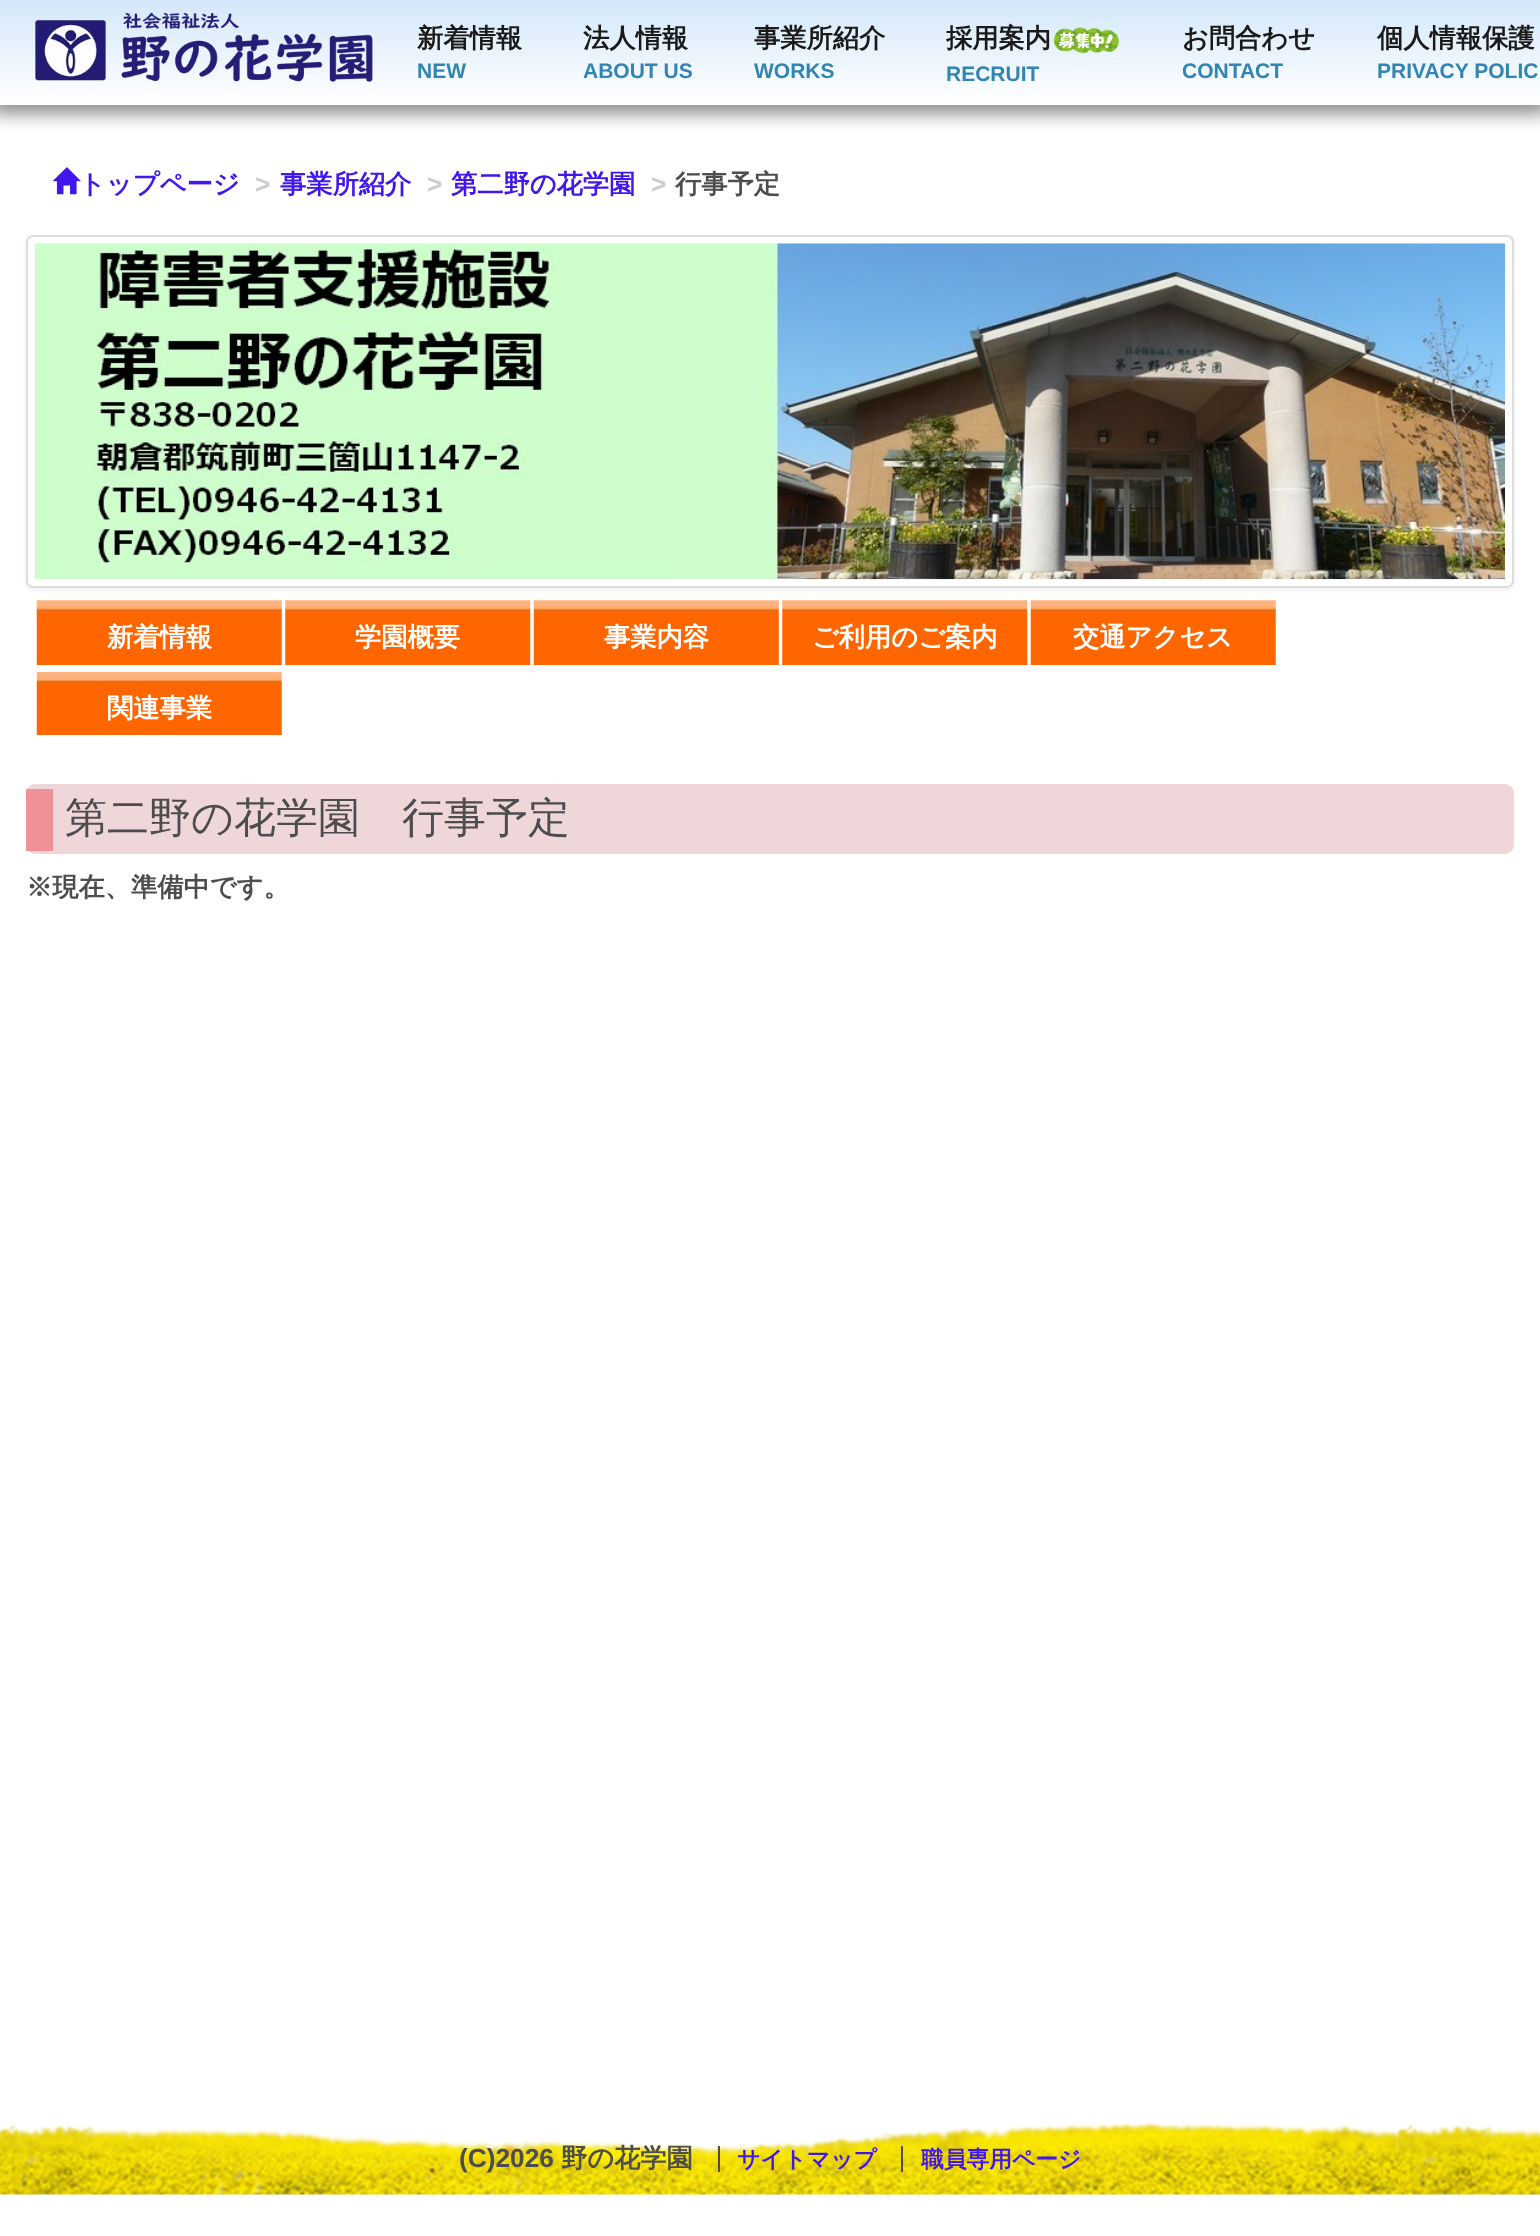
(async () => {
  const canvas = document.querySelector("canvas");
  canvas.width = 1540;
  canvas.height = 2236;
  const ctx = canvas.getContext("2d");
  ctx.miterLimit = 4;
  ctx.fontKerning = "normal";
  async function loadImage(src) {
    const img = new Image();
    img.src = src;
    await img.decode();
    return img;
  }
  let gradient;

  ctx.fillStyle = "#ffffff";
  ctx.fillRect(0, 0, 1540, 2236);
  ctx.fillStyle = "#8d8d8d";
  ctx.filter = "blur(9px)";
  ctx.beginPath();
  ctx.rect(-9, -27, 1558, 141);
  ctx.fill();
  ctx.filter = "none";
  gradient = ctx.createLinearGradient(770, -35, 770, 105);
  gradient.addColorStop(0, "#c5e0f8");
  gradient.addColorStop(1, "#ffffff");
  ctx.fillStyle = gradient;
  ctx.fillRect(0, 0, 1540, 105);
  ctx.drawImage(await loadImage("img/1.png"), 35, 12, 338, 70);
  ctx.drawImage(await loadImage("img/2.png"), 1053, 27, 67, 27);
  ctx.drawImage(await loadImage("img/3.png"), 52, 167, 29, 28);
  ctx.fillStyle = "rgba(0, 0, 0, 0.07)";
  ctx.filter = "blur(2px)";
  ctx.beginPath();
  ctx.roundRect(26, 236, 1488, 354, 7);
  ctx.fill();
  ctx.filter = "none";
  ctx.fillStyle = "#ffffff";
  ctx.beginPath();
  ctx.roundRect(27, 236, 1486, 351, 6);
  ctx.fill();
  ctx.strokeStyle = "#dddddd";
  ctx.lineWidth = 2;
  ctx.stroke();
  ctx.drawImage(await loadImage("img/4.png"), 35, 243, 1470, 337);
  ctx.drawImage(await loadImage("img/5.png"), 36, 600, 246, 65);
  ctx.drawImage(await loadImage("img/6.png"), 285, 600, 246, 65);
  ctx.drawImage(await loadImage("img/5.png"), 533, 600, 246, 65);
  ctx.drawImage(await loadImage("img/6.png"), 782, 600, 246, 65);
  ctx.drawImage(await loadImage("img/5.png"), 1030, 600, 246, 65);
  ctx.drawImage(await loadImage("img/7.png"), 36, 672, 246, 63);
  ctx.fillStyle = "#efd7d9";
  ctx.beginPath();
  ctx.roundRect(26, 784, 1488, 70, 9);
  ctx.fill();
  ctx.fillStyle = "#f09199";
  ctx.fillRect(26, 789, 27, 62);
  ctx.drawImage(await loadImage("img/8.png"), 0, 2122, 1540, 73);
  ctx.fillStyle = "#4d4d4d";
  ctx.fillRect(718, 2146, 2, 26);
  ctx.fillRect(901, 2146, 2, 26);
  ctx.font = "bold 26.25px WenQuanYi Zen Hei";
  ctx.fillStyle = "#1a1a1a";
  ctx.fillText("新着情報", 417, 47);
  ctx.font = "bold 21px Liberation Sans";
  ctx.fillStyle = "#3285b3";
  ctx.fillText("NEW", 417, 78);
  ctx.font = "bold 26.25px WenQuanYi Zen Hei";
  ctx.fillStyle = "#1a1a1a";
  ctx.fillText("法人情報", 583, 47);
  ctx.font = "bold 21px Liberation Sans";
  ctx.fillStyle = "#3285b3";
  ctx.fillText("ABOUT US", 583, 78);
  ctx.font = "bold 26.25px WenQuanYi Zen Hei";
  ctx.fillStyle = "#1a1a1a";
  ctx.fillText("事業所紹介", 754, 47);
  ctx.font = "bold 21px Liberation Sans";
  ctx.fillStyle = "#3285b3";
  ctx.fillText("WORKS", 754, 78);
  ctx.font = "bold 26.25px WenQuanYi Zen Hei";
  ctx.fillStyle = "#1a1a1a";
  ctx.fillText("採用案内", 946, 47);
  ctx.font = "bold 21px Liberation Sans";
  ctx.fillStyle = "#3285b3";
  ctx.fillText("RECRUIT", 946, 81);
  ctx.font = "bold 26.25px WenQuanYi Zen Hei";
  ctx.fillStyle = "#1a1a1a";
  ctx.fillText("お問合わせ", 1182, 47);
  ctx.font = "bold 21px Liberation Sans";
  ctx.fillStyle = "#3285b3";
  ctx.fillText("CONTACT", 1182, 78);
  ctx.font = "bold 26.25px WenQuanYi Zen Hei";
  ctx.fillStyle = "#1a1a1a";
  ctx.fillText("個人情報保護", 1377, 47);
  ctx.font = "bold 21px Liberation Sans";
  ctx.fillStyle = "#3285b3";
  ctx.fillText("PRIVACY POLIC", 1377, 78);
  ctx.font = "bold 26.25px WenQuanYi Zen Hei";
  ctx.fillStyle = "#4117ec";
  ctx.fillText("トップページ", 79, 193);
  ctx.font = "bold 26.25px Liberation Sans";
  ctx.fillStyle = "#cccccc";
  ctx.fillText(">", 255, 193);
  ctx.font = "bold 26.25px WenQuanYi Zen Hei";
  ctx.fillStyle = "#4117ec";
  ctx.fillText("事業所紹介", 280, 193);
  ctx.font = "bold 26.25px Liberation Sans";
  ctx.fillStyle = "#cccccc";
  ctx.fillText(">", 427, 193);
  ctx.font = "bold 26.25px WenQuanYi Zen Hei";
  ctx.fillStyle = "#4117ec";
  ctx.fillText("第二野の花学園", 451, 193);
  ctx.font = "bold 26.25px Liberation Sans";
  ctx.fillStyle = "#cccccc";
  ctx.fillText(">", 651, 193);
  ctx.font = "bold 26.25px WenQuanYi Zen Hei";
  ctx.fillStyle = "#4d4d4d";
  ctx.fillText("行事予定", 675, 193);
  ctx.fillStyle = "#ffffff";
  for (const [text, x, y] of [
    ["新着情報", 107, 646],
    ["学園概要", 355, 646],
    ["事業内容", 604, 646],
    ["ご利用のご案内", 812, 646],
    ["交通アクセス", 1073, 646],
    ["関連事業", 107, 717],
  ]) {
    ctx.fillText(text, x, y);
  }
  ctx.font = "500 42px WenQuanYi Zen Hei";
  ctx.fillStyle = "#4d4d4d";
  ctx.fillText("第二野の花学園　行事予定", 65, 832);
  ctx.font = "bold 26.25px WenQuanYi Zen Hei";
  ctx.fillText("※現在、準備中です。", 26, 896);
  ctx.font = "bold 26.25px Liberation Sans";
  ctx.fillText("(C)2026", 459, 2167);
  ctx.font = "bold 26.25px WenQuanYi Zen Hei";
  ctx.fillText("野の花学園", 561, 2167);
  ctx.font = "bold 22.75px WenQuanYi Zen Hei";
  ctx.fillStyle = "#4117ec";
  ctx.fillText("サイトマップ", 737, 2167);
  ctx.fillText("職員専用ページ", 921, 2167);
})();
